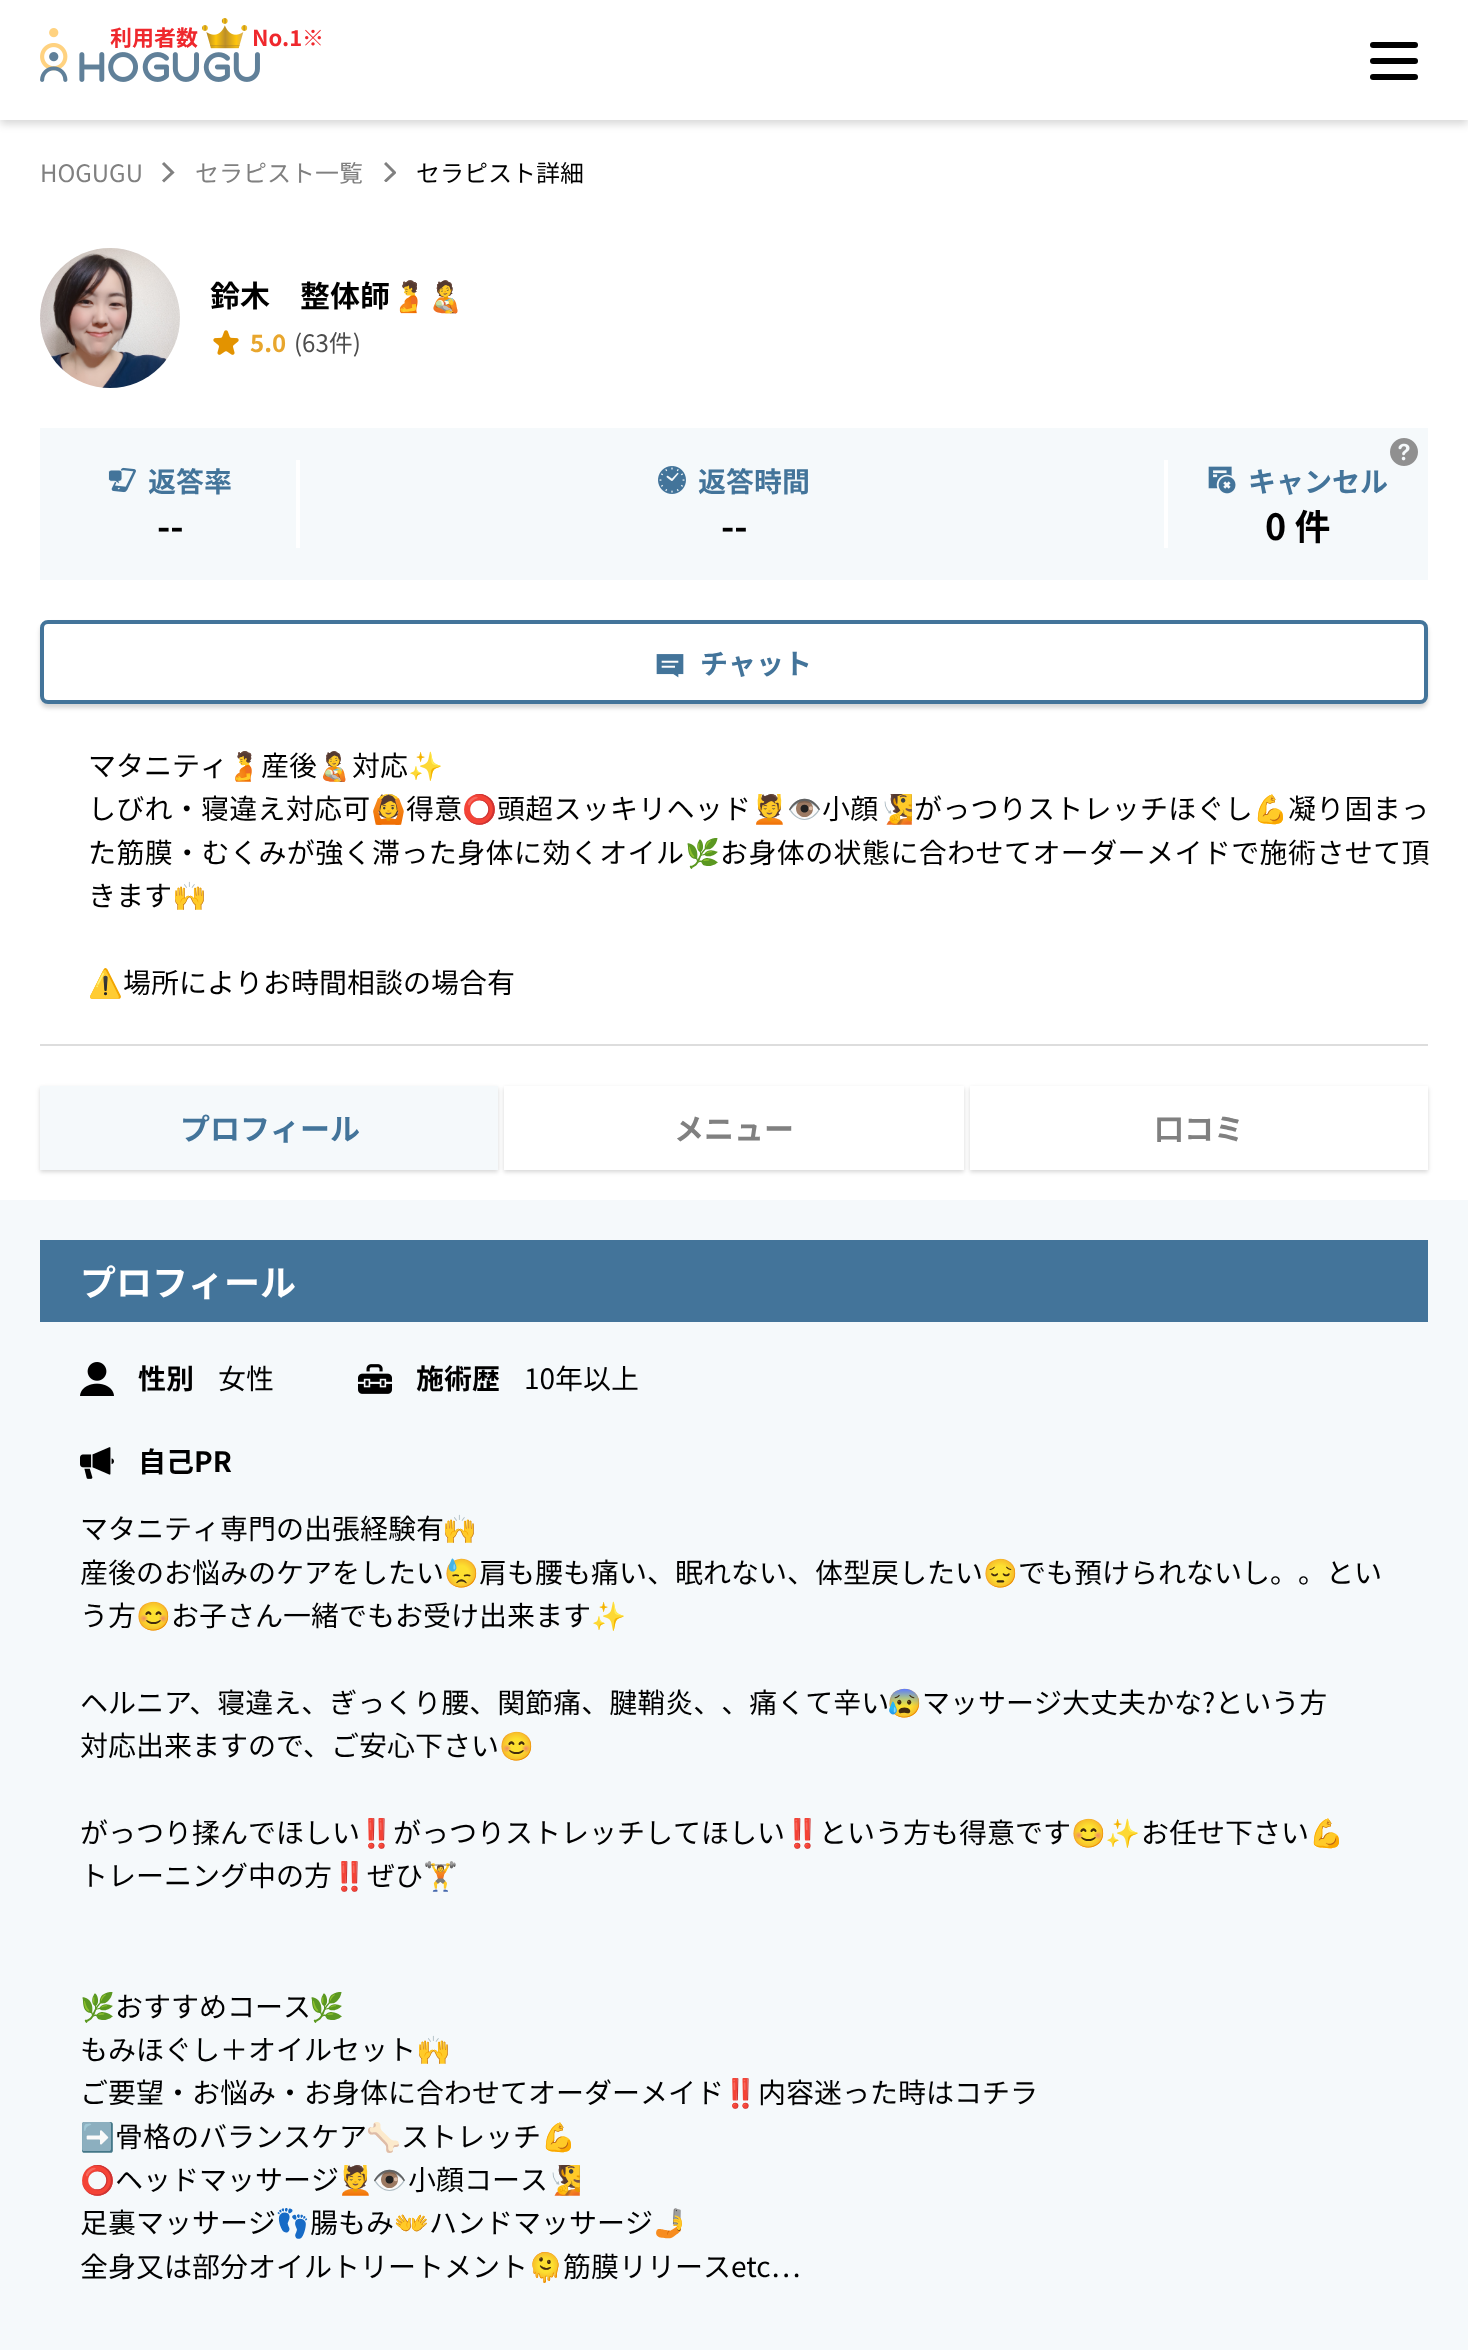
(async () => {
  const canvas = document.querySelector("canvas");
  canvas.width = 1468;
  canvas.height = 2350;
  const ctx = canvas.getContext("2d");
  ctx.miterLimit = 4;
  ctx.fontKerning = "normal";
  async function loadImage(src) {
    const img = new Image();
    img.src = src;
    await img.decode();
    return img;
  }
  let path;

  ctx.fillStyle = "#f5f9fb";
  ctx.fillRect(0, 0, 1468, 2350);
  ctx.fillStyle = "#ffffff";
  ctx.fillRect(0, 120, 1468, 1080);
  ctx.fillStyle = "rgba(0, 0, 0, 0.16)";
  ctx.filter = "blur(4px)";
  ctx.beginPath();
  ctx.rect(0, 4, 1468, 120);
  ctx.fill();
  ctx.filter = "none";
  ctx.fillStyle = "#ffffff";
  ctx.fillRect(0, 0, 1468, 120);
  ctx.drawImage(await loadImage("img/2.png"), 40, 28, 220, 54);
  ctx.drawImage(await loadImage("img/1.png"), 202, 18, 46, 31);
  ctx.fillStyle = "#000000";
  ctx.beginPath();
  ctx.roundRect(1370, 58, 48, 6, 3);
  ctx.fill();
  ctx.beginPath();
  ctx.roundRect(1370, 42, 48, 6, 3);
  ctx.fill();
  ctx.beginPath();
  ctx.roundRect(1370, 74, 48, 6, 3);
  ctx.fill();
  path = new Path2D("M163 163L172.5 172.5L163 181.5");
  ctx.strokeStyle = "#808080";
  ctx.lineWidth = 3;
  ctx.stroke(path);
  ctx.save();
  ctx.beginPath();
  ctx.rect(384, 162, 12, 20);
  ctx.clip();
  path = new Path2D("M385 163L394.5 172.5L385 181.5");
  ctx.stroke(path);
  ctx.restore();
  ctx.drawImage(await loadImage("img/3.png"), 40, 248, 140, 140);
  ctx.drawImage(await loadImage("img/4.png"), 213, 330, 26, 25);
  ctx.fillStyle = "#f5f9fb";
  ctx.fillRect(40, 428, 1388, 152);
  ctx.drawImage(await loadImage("img/5.png"), 1390, 438, 28, 28);
  ctx.drawImage(await loadImage("img/6.png"), 108, 467, 28, 26);
  ctx.fillStyle = "#ffffff";
  ctx.fillRect(296, 460, 4, 88);
  ctx.drawImage(await loadImage("img/7.png"), 658, 466, 28, 28);
  ctx.fillRect(1164, 460, 4, 88);
  ctx.drawImage(await loadImage("img/8.png"), 1208, 466, 28, 28);
  ctx.fillStyle = "rgba(0, 0, 0, 0.16)";
  ctx.filter = "blur(2px)";
  ctx.beginPath();
  ctx.roundRect(40, 624, 1388, 84, 8);
  ctx.fill();
  ctx.filter = "none";
  ctx.fillStyle = "#ffffff";
  ctx.beginPath();
  ctx.roundRect(42, 622, 1384, 80, 6);
  ctx.fill();
  ctx.strokeStyle = "#43749a";
  ctx.lineWidth = 4;
  ctx.stroke();
  ctx.drawImage(await loadImage("img/9.png"), 656, 654, 28, 24);
  ctx.fillStyle = "#dddddd";
  ctx.fillRect(40, 1044, 1388, 2);
  ctx.fillStyle = "rgba(0, 0, 0, 0.16)";
  ctx.filter = "blur(2px)";
  ctx.beginPath();
  ctx.rect(40, 1088, 458, 84);
  ctx.fill();
  ctx.filter = "none";
  ctx.fillStyle = "#f5f9fb";
  ctx.fillRect(40, 1086, 458, 84);
  ctx.save();
  path = new Path2D("M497 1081H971V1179H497ZM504 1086H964V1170H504Z");
  ctx.clip(path, "evenodd");
  ctx.fillStyle = "rgba(0, 0, 0, 0.16)";
  ctx.filter = "blur(2px)";
  ctx.beginPath();
  ctx.rect(504, 1088, 460, 84);
  ctx.fill();
  ctx.filter = "none";
  ctx.restore();
  ctx.save();
  path = new Path2D("M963 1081H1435V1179H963ZM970 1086H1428V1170H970Z");
  ctx.clip(path, "evenodd");
  ctx.fillStyle = "rgba(0, 0, 0, 0.16)";
  ctx.filter = "blur(2px)";
  ctx.beginPath();
  ctx.rect(970, 1088, 458, 84);
  ctx.fill();
  ctx.filter = "none";
  ctx.restore();
  ctx.fillStyle = "#43749a";
  ctx.fillRect(40, 1240, 1388, 82);
  ctx.drawImage(await loadImage("img/10.png"), 80, 1362, 34, 34);
  ctx.drawImage(await loadImage("img/11.png"), 358, 1364, 34, 30);
  ctx.drawImage(await loadImage("img/12.png"), 80, 1447, 34, 32);
  ctx.font = "bold 22px Noto Sans JP";
  ctx.fillStyle = "#ef282d";
  ctx.fillText("利用者数", 110, 46);
  ctx.fillText("No.1※", 252, 46);
  ctx.font = "24px Noto Sans JP";
  ctx.fillStyle = "#808080";
  ctx.fillText("HOGUGU", 40, 182);
  ctx.fillText("セラピスト一覧", 195, 182);
  ctx.fillStyle = "#000000";
  ctx.fillText("セラピスト詳細", 416, 182);
  ctx.font = "bold 30px Noto Sans JP";
  ctx.fillText("鈴木　整体師", 210, 307);
  ctx.font = "bold 30px Noto Color Emoji";
  ctx.fillText("🫄🧑‍🍼", 390, 307);
  ctx.font = "bold 24px Noto Sans JP";
  ctx.fillStyle = "#e8a62d";
  ctx.fillText("5.0", 250, 352);
  ctx.font = "24px Noto Sans JP";
  ctx.fillStyle = "#4d4d4d";
  ctx.fillText("(63件)", 294, 352);
  ctx.font = "bold 28px Noto Sans JP";
  ctx.fillStyle = "#43749a";
  ctx.fillText("返答率", 148, 492);
  ctx.font = "bold 36px Noto Sans JP";
  ctx.fillStyle = "#000000";
  ctx.fillText("--", 157, 540);
  ctx.font = "bold 28px Noto Sans JP";
  ctx.fillStyle = "#43749a";
  ctx.fillText("返答時間", 698, 492);
  ctx.font = "bold 36px Noto Sans JP";
  ctx.fillStyle = "#000000";
  ctx.fillText("--", 721, 540);
  ctx.font = "bold 28px Noto Sans JP";
  ctx.fillStyle = "#43749a";
  ctx.fillText("キャンセル", 1248, 492);
  ctx.font = "bold 36px Noto Sans JP";
  ctx.fillStyle = "#000000";
  ctx.fillText("0 件", 1265, 540);
  ctx.font = "bold 28px Noto Sans JP";
  ctx.fillStyle = "#43749a";
  ctx.fillText("チャット", 700, 674);
  ctx.font = "28px Noto Sans JP";
  ctx.fillStyle = "#000000";
  ctx.fillText("マタニティ", 88, 776);
  ctx.font = "28px Noto Color Emoji";
  ctx.fillText("🫄", 226, 776);
  ctx.font = "28px Noto Sans JP";
  ctx.fillText("産後", 261, 776);
  ctx.font = "28px Noto Color Emoji";
  ctx.fillText("🧑‍🍼", 317, 776);
  ctx.font = "28px Noto Sans JP";
  ctx.fillText("対応", 352, 776);
  ctx.font = "28px Noto Color Emoji";
  ctx.fillText("✨", 408, 776);
  ctx.letterSpacing = "0.25px";
  ctx.font = "28px Noto Sans JP";
  ctx.fillText("しびれ・寝違え対応可", 88, 819);
  ctx.font = "28px Noto Color Emoji";
  ctx.fillText("🙆", 371, 819);
  ctx.font = "28px Noto Sans JP";
  ctx.fillText("得意", 406, 819);
  ctx.font = "28px Noto Color Emoji";
  ctx.fillText("⭕", 462, 819);
  ctx.font = "28px Noto Sans JP";
  ctx.fillText("頭超スッキリヘッド", 497, 819);
  ctx.font = "28px Noto Color Emoji";
  ctx.fillText("💆👁️", 752, 819);
  ctx.font = "28px Noto Sans JP";
  ctx.fillText("小顔", 822, 819);
  ctx.font = "28px Noto Color Emoji";
  ctx.fillText("🧏", 879, 819);
  ctx.font = "28px Noto Sans JP";
  ctx.fillText("がっつりストレッチほぐし", 914, 819);
  ctx.font = "28px Noto Color Emoji";
  ctx.fillText("💪", 1253, 819);
  ctx.font = "28px Noto Sans JP";
  ctx.fillText("凝り固まっ", 1288, 819);
  ctx.letterSpacing = "0.4px";
  ctx.fillText("た筋膜・むくみが強く滞った身体に効くオイル", 88, 863);
  ctx.font = "28px Noto Color Emoji";
  ctx.fillText("🌿", 685, 863);
  ctx.font = "28px Noto Sans JP";
  ctx.fillText("お身体の状態に合わせてオーダーメイドで施術させて頂", 720, 863);
  ctx.letterSpacing = "0px";
  ctx.fillText("きます", 88, 906);
  ctx.font = "28px Noto Color Emoji";
  ctx.fillText("🙌", 172, 906);
  ctx.fillText("⚠", 88, 993);
  ctx.font = "28px Noto Sans JP";
  ctx.fillText("場所によりお時間相談の場合有", 123, 993);
  ctx.font = "bold 30px Noto Sans JP";
  ctx.fillStyle = "#43749a";
  ctx.fillText("プロフィール", 180, 1140);
  ctx.fillStyle = "#808080";
  ctx.fillText("メニュー", 674, 1140);
  ctx.fillText("口コミ", 1154, 1140);
  ctx.font = "bold 36px Noto Sans JP";
  ctx.fillStyle = "#ffffff";
  ctx.fillText("プロフィール", 80, 1296);
  ctx.font = "bold 28px Noto Sans JP";
  ctx.fillStyle = "#000000";
  ctx.fillText("性別", 138, 1389);
  ctx.font = "28px Noto Sans JP";
  ctx.fillText("女性", 218, 1389);
  ctx.font = "bold 28px Noto Sans JP";
  ctx.fillText("施術歴", 416, 1389);
  ctx.font = "28px Noto Sans JP";
  ctx.fillText("10年以上", 524, 1389);
  ctx.font = "bold 28px Noto Sans JP";
  ctx.fillText("自己PR", 138, 1472);
  ctx.font = "28px Noto Sans JP";
  ctx.fillText("マタニティ専門の出張経験有", 80, 1539);
  ctx.font = "28px Noto Color Emoji";
  ctx.fillText("🙌", 442, 1539);
  ctx.font = "28px Noto Sans JP";
  ctx.fillText("産後のお悩みのケアをしたい", 80, 1583);
  ctx.font = "28px Noto Color Emoji";
  ctx.fillText("😓", 444, 1583);
  ctx.font = "28px Noto Sans JP";
  ctx.fillText("肩も腰も痛い、眠れない、体型戻したい", 479, 1583);
  ctx.font = "28px Noto Color Emoji";
  ctx.fillText("😔", 983, 1583);
  ctx.font = "28px Noto Sans JP";
  ctx.fillText("でも預けられないし。。とい", 1018, 1583);
  ctx.fillText("う方", 80, 1626);
  ctx.font = "28px Noto Color Emoji";
  ctx.fillText("😊", 136, 1626);
  ctx.font = "28px Noto Sans JP";
  ctx.fillText("お子さん一緒でもお受け出来ます", 171, 1626);
  ctx.font = "28px Noto Color Emoji";
  ctx.fillText("✨", 591, 1626);
  ctx.font = "28px Noto Sans JP";
  ctx.fillText("ヘルニア、寝違え、ぎっくり腰、関節痛、腱鞘炎、、痛くて辛い", 80, 1713);
  ctx.font = "28px Noto Color Emoji";
  ctx.fillText("😰", 887, 1713);
  ctx.font = "28px Noto Sans JP";
  ctx.fillText("マッサージ大丈夫かな?という方", 922, 1713);
  ctx.fillText("対応出来ますので、ご安心下さい", 80, 1756);
  ctx.font = "28px Noto Color Emoji";
  ctx.fillText("😊", 499, 1756);
  ctx.font = "28px Noto Sans JP";
  ctx.fillText("がっつり揉んでほしい", 80, 1843);
  ctx.font = "28px Noto Color Emoji";
  ctx.fillText("‼️", 359, 1843);
  ctx.font = "28px Noto Sans JP";
  ctx.fillText("がっつりストレッチしてほしい", 393, 1843);
  ctx.font = "28px Noto Color Emoji";
  ctx.fillText("‼️", 785, 1843);
  ctx.font = "28px Noto Sans JP";
  ctx.fillText("という方も得意です", 819, 1843);
  ctx.font = "28px Noto Color Emoji";
  ctx.fillText("😊✨", 1071, 1843);
  ctx.font = "28px Noto Sans JP";
  ctx.fillText("お任せ下さい", 1141, 1843);
  ctx.font = "28px Noto Color Emoji";
  ctx.fillText("💪", 1309, 1843);
  ctx.font = "28px Noto Sans JP";
  ctx.fillText("トレーニング中の方", 80, 1886);
  ctx.font = "28px Noto Color Emoji";
  ctx.fillText("‼️", 332, 1886);
  ctx.font = "28px Noto Sans JP";
  ctx.fillText("ぜひ", 367, 1886);
  ctx.font = "28px Noto Color Emoji";
  ctx.fillText("🏋️", 423, 1886);
  ctx.fillText("🌿", 80, 2017);
  ctx.font = "28px Noto Sans JP";
  ctx.fillText("おすすめコース", 115, 2017);
  ctx.font = "28px Noto Color Emoji";
  ctx.fillText("🌿", 309, 2017);
  ctx.font = "28px Noto Sans JP";
  ctx.fillText("もみほぐし＋オイルセット", 80, 2060);
  ctx.font = "28px Noto Color Emoji";
  ctx.fillText("🙌", 416, 2060);
  ctx.font = "28px Noto Sans JP";
  ctx.fillText("ご要望・お悩み・お身体に合わせてオーダーメイド", 80, 2103);
  ctx.font = "28px Noto Color Emoji";
  ctx.fillText("‼️", 723, 2103);
  ctx.font = "28px Noto Sans JP";
  ctx.fillText("内容迷った時はコチラ", 758, 2103);
  ctx.font = "28px Noto Color Emoji";
  ctx.fillText("➡", 80, 2147);
  ctx.font = "28px Noto Sans JP";
  ctx.fillText("骨格のバランスケア", 115, 2147);
  ctx.font = "28px Noto Color Emoji";
  ctx.fillText("🦴", 366, 2147);
  ctx.font = "28px Noto Sans JP";
  ctx.fillText("ストレッチ", 401, 2147);
  ctx.font = "28px Noto Color Emoji";
  ctx.fillText("💪", 541, 2147);
  ctx.fillText("⭕", 80, 2190);
  ctx.font = "28px Noto Sans JP";
  ctx.fillText("ヘッドマッサージ", 115, 2190);
  ctx.font = "28px Noto Color Emoji";
  ctx.fillText("💆👁️", 338, 2190);
  ctx.font = "28px Noto Sans JP";
  ctx.fillText("小顔コース", 408, 2190);
  ctx.font = "28px Noto Color Emoji";
  ctx.fillText("🧏", 547, 2190);
  ctx.font = "28px Noto Sans JP";
  ctx.fillText("足裏マッサージ", 80, 2233);
  ctx.font = "28px Noto Color Emoji";
  ctx.fillText("👣", 275, 2233);
  ctx.font = "28px Noto Sans JP";
  ctx.fillText("腸もみ", 310, 2233);
  ctx.font = "28px Noto Color Emoji";
  ctx.fillText("👐", 394, 2233);
  ctx.font = "28px Noto Sans JP";
  ctx.fillText("ハンドマッサージ", 429, 2233);
  ctx.font = "28px Noto Color Emoji";
  ctx.fillText("🤳", 653, 2233);
  ctx.font = "28px Noto Sans JP";
  ctx.fillText("全身又は部分オイルトリートメント", 80, 2277);
  ctx.font = "28px Noto Color Emoji";
  ctx.fillText("🫠", 528, 2277);
  ctx.font = "28px Noto Sans JP";
  ctx.fillText("筋膜リリースetc…", 563, 2277);
})();
